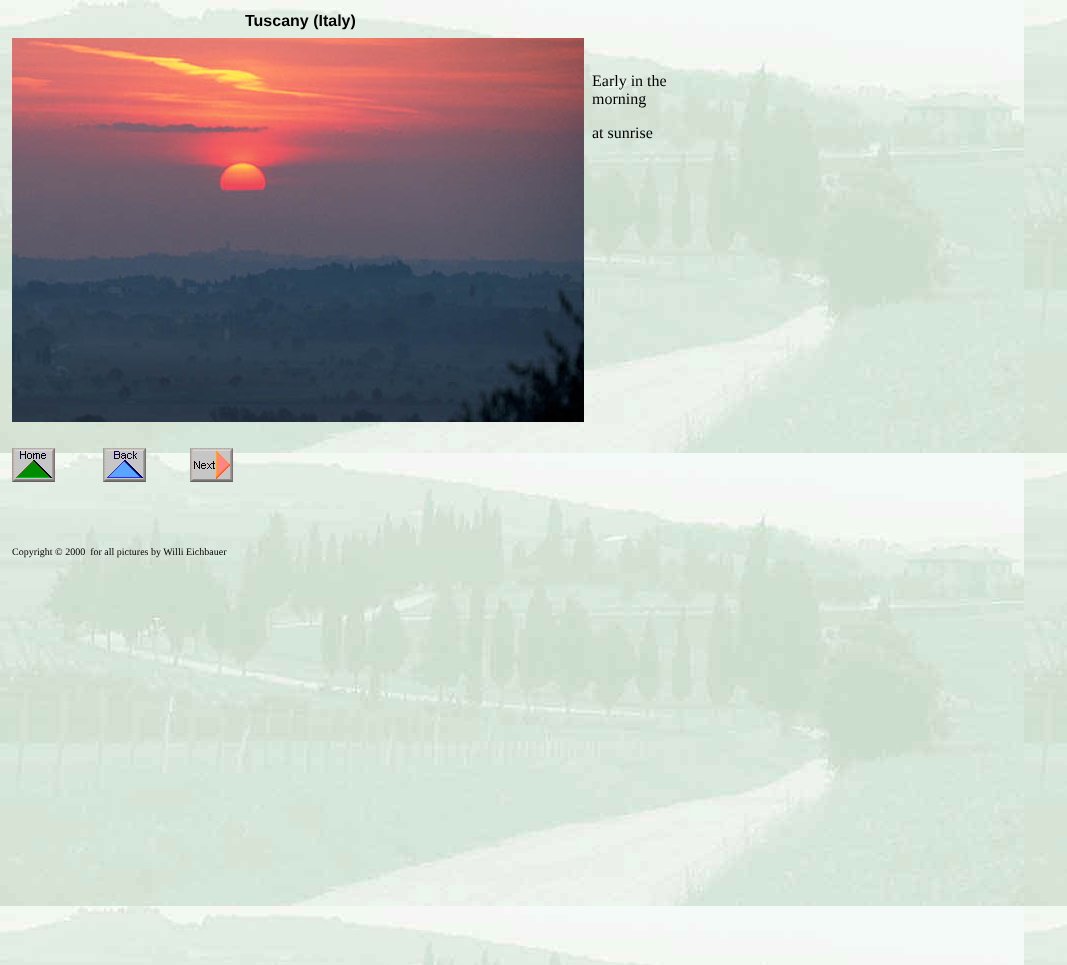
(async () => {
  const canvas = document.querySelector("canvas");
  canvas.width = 1067;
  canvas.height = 965;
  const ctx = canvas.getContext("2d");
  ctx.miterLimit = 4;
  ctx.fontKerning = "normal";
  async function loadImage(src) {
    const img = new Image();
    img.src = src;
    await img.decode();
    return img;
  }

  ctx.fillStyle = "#ffffff";
  ctx.fillRect(0, 0, 1067, 965);
  ctx.drawImage(await loadImage("img/1.png"), 0, 0, 1067, 965);
  ctx.drawImage(await loadImage("img/2.png"), 12, 38, 572, 384);
  ctx.drawImage(await loadImage("img/3.png"), 12, 448, 43, 34);
  ctx.drawImage(await loadImage("img/4.png"), 103, 448, 43, 34);
  ctx.drawImage(await loadImage("img/5.png"), 190, 448, 43, 34);
  ctx.font = "bold 16px Liberation Sans";
  ctx.fillStyle = "#000000";
  ctx.fillText("Tuscany (Italy)", 245, 26);
  ctx.font = "16px Liberation Serif";
  for (const [text, x, y] of [
    ["Early in the", 592, 86],
    ["morning", 592, 104],
    ["at sunrise", 592, 138],
  ]) {
    ctx.fillText(text, x, y);
  }
  ctx.font = "10px Liberation Serif";
  ctx.fillText("Copyright © 2000  for all pictures by Willi Eichbauer", 12, 555);
})();
